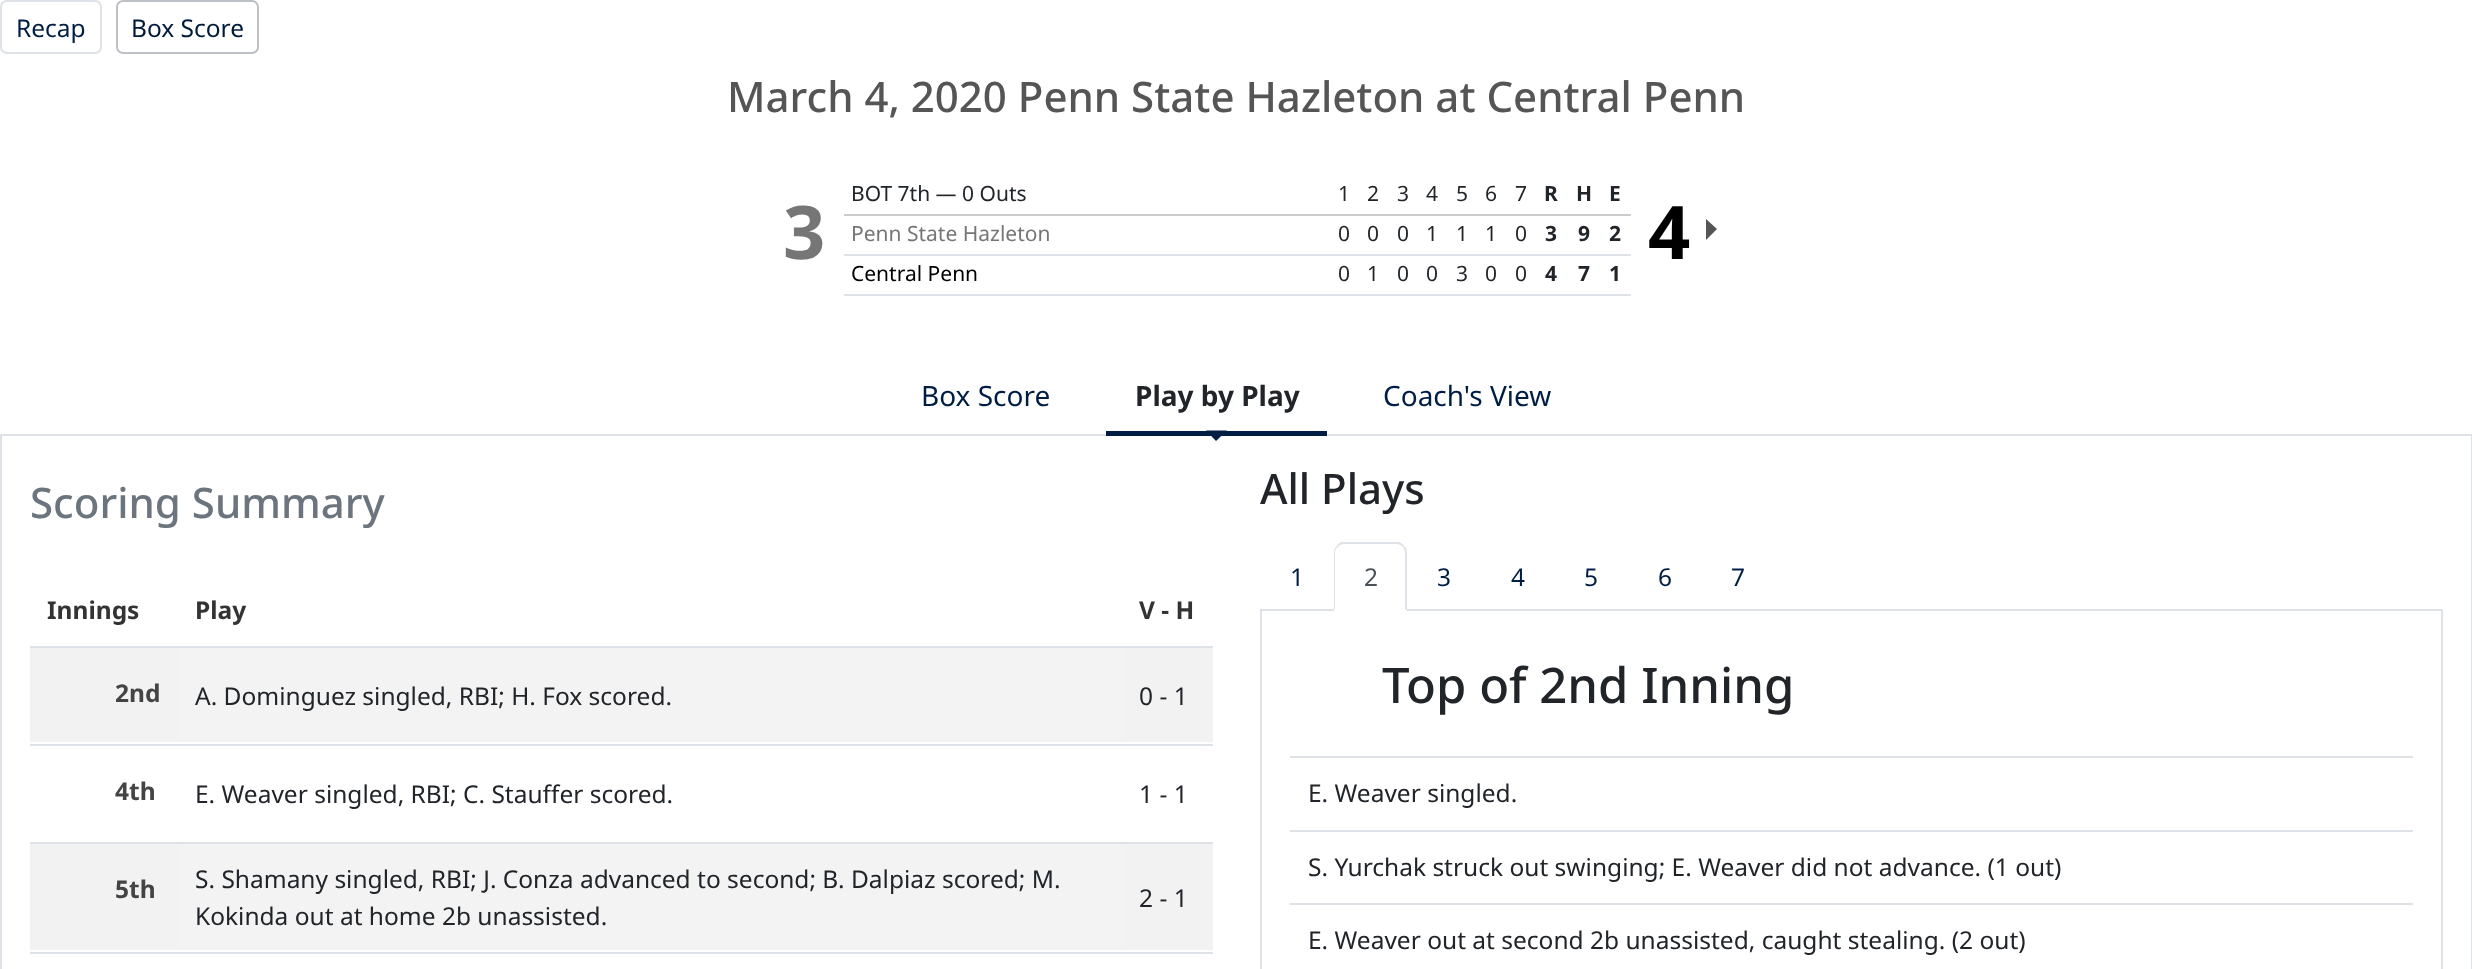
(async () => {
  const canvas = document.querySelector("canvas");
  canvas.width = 2472;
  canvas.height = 969;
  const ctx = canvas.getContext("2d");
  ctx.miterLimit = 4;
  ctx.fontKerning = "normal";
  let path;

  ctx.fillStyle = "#ffffff";
  ctx.fillRect(0, 0, 2472, 969);
  ctx.beginPath();
  ctx.roundRect(1, 1, 100, 52, 6);
  ctx.strokeStyle = "#dee2e6";
  ctx.lineWidth = 2;
  ctx.stroke();
  ctx.beginPath();
  ctx.roundRect(117, 1, 141, 52, 6);
  ctx.strokeStyle = "#bdc0c4";
  ctx.stroke();
  for (const [x, y, w, h, color] of [
    [844, 214, 787, 2, "#cccccc"],
    [844, 254, 787, 2, "#dee2e6"],
    [844, 294, 787, 2, "#dee2e6"],
  ]) {
    ctx.fillStyle = color;
    ctx.fillRect(x, y, w, h);
  }
  ctx.fillStyle = "#555555";
  path = new Path2D("M1706 240V219L1717 229Z");
  ctx.fill(path);
  ctx.fillStyle = "#dee2e6";
  ctx.fillRect(0, 434, 2472, 2);
  ctx.fillStyle = "#001e44";
  ctx.fillRect(1106, 431, 221, 5);
  path = new Path2D("M1206 430.5H1227L1216 441Z");
  ctx.fill(path);
  for (const [x, y, w, h, color] of [
    [2471, 436, 1, 533, "#dee2e6"],
    [0, 436, 2, 533, "#dee2e6"],
    [30, 646, 1183, 2, "#dee2e6"],
    [30, 648, 149, 94, "#f2f2f2"],
    [179, 648, 943, 94, "#f3f3f3"],
    [1122, 648, 91, 94, "#f2f2f2"],
    [30, 744, 1183, 2, "#dee2e6"],
    [30, 842, 1183, 2, "#dee2e6"],
    [30, 844, 149, 106, "#f2f2f2"],
    [179, 844, 943, 106, "#f3f3f3"],
    [1122, 844, 91, 106, "#f2f2f2"],
    [30, 952, 1183, 2, "#dee2e6"],
    [1260, 609, 1183, 2, "#dee2e6"],
  ]) {
    ctx.fillStyle = color;
    ctx.fillRect(x, y, w, h);
  }
  ctx.fillStyle = "#ffffff";
  ctx.beginPath();
  ctx.roundRect(1334, 543, 73, 68, [11, 11, 0, 0]);
  ctx.fill();
  ctx.fillStyle = "#dee2e6";
  path = new Path2D("M1344 544C1342 544 1339 545 1338 547L1337 546C1338 544 1339 543 1341 542H1399C1401 543 1403 544 1404 546L1403 547C1401 545 1399 544 1396 544Z");
  ctx.fill(path);
  path = new Path2D("M1407 611V553C1407 550 1406 547 1404 546L1403 547C1404 548 1405 551 1405 553V609Z");
  ctx.fill(path);
  ctx.fillStyle = "#ffffff";
  path = new Path2D("M1407 611H1334L1335 609H1405Z");
  ctx.fill(path);
  ctx.fillStyle = "#dee2e6";
  path = new Path2D("M1334 610V553C1334 550 1335 547 1337 546L1338 547C1336 548 1335 550 1335 553V609Z");
  ctx.fill(path);
  for (const [x, y, w, h, color] of [
    [2441, 611, 2, 358, "#dee2e6"],
    [1260, 611, 2, 358, "#dee2e6"],
    [1290, 756, 1123, 2, "#dee2e6"],
    [1290, 830, 1123, 2, "#dee2e6"],
    [1290, 903, 1123, 2, "#dee2e6"],
  ]) {
    ctx.fillStyle = color;
    ctx.fillRect(x, y, w, h);
  }
  ctx.font = "24.5px Noto Sans";
  ctx.fillStyle = "#001e44";
  ctx.fillText("Recap", 16, 37);
  ctx.fillStyle = "#001a3a";
  ctx.fillText("Box Score", 131, 37);
  ctx.font = "500 42px Noto Sans";
  ctx.fillStyle = "#555555";
  ctx.fillText("March 4, 2020 Penn State Hazleton at Central Penn", 727, 112);
  ctx.font = "bold 74px Noto Sans";
  ctx.fillStyle = "#767676";
  ctx.fillText("3", 783, 259);
  ctx.font = "21px Noto Sans";
  ctx.fillStyle = "#212529";
  for (const [text, x, y] of [
    ["BOT 7th — 0 Outs", 851, 201],
    ["1", 1338, 201],
    ["2", 1367, 201],
    ["3", 1397, 201],
    ["4", 1426, 201],
    ["5", 1456, 201],
    ["6", 1485, 201],
    ["7", 1515, 201],
  ]) {
    ctx.fillText(text, x, y);
  }
  ctx.font = "bold 21px Noto Sans";
  for (const [text, x, y] of [
    ["R", 1544, 201],
    ["H", 1576, 201],
    ["E", 1609, 201],
  ]) {
    ctx.fillText(text, x, y);
  }
  ctx.font = "21px Noto Sans";
  ctx.fillStyle = "#767676";
  ctx.fillText("Penn State Hazleton", 851, 241);
  ctx.fillStyle = "#212529";
  for (const [text, x, y] of [
    ["0", 1338, 241],
    ["0", 1367, 241],
    ["0", 1397, 241],
    ["1", 1426, 241],
    ["1", 1456, 241],
    ["1", 1485, 241],
    ["0", 1515, 241],
  ]) {
    ctx.fillText(text, x, y);
  }
  ctx.font = "bold 21px Noto Sans";
  for (const [text, x, y] of [
    ["3", 1545, 241],
    ["9", 1578, 241],
    ["2", 1609, 241],
  ]) {
    ctx.fillText(text, x, y);
  }
  ctx.font = "21px Noto Sans";
  ctx.fillStyle = "#000000";
  ctx.fillText("Central Penn", 851, 281);
  ctx.fillStyle = "#212529";
  for (const [text, x, y] of [
    ["0", 1338, 281],
    ["1", 1367, 281],
    ["0", 1397, 281],
    ["0", 1426, 281],
    ["3", 1456, 281],
    ["0", 1485, 281],
    ["0", 1515, 281],
  ]) {
    ctx.fillText(text, x, y);
  }
  ctx.font = "bold 21px Noto Sans";
  for (const [text, x, y] of [
    ["4", 1545, 281],
    ["7", 1578, 281],
    ["1", 1609, 281],
  ]) {
    ctx.fillText(text, x, y);
  }
  ctx.font = "bold 74px Noto Sans";
  ctx.fillStyle = "#000000";
  ctx.fillText("4", 1648, 259);
  ctx.font = "28px Noto Sans";
  ctx.fillStyle = "#001e44";
  ctx.fillText("Box Score", 921, 406);
  ctx.font = "bold 28px Noto Sans";
  ctx.fillStyle = "#212529";
  ctx.fillText("Play by Play", 1135, 406);
  ctx.font = "28px Noto Sans";
  ctx.fillStyle = "#001e44";
  ctx.fillText("Coach's View", 1383, 406);
  ctx.font = "500 42px Noto Sans";
  ctx.fillStyle = "#6c757d";
  ctx.fillText("Scoring Summary", 30, 518);
  ctx.font = "bold 24.5px Noto Sans";
  ctx.fillStyle = "#333333";
  for (const [text, x, y] of [
    ["Innings", 47, 619],
    ["Play", 195, 619],
    ["V - H", 1139, 619],
  ]) {
    ctx.fillText(text, x, y);
  }
  ctx.fillStyle = "#444444";
  ctx.fillText("2nd", 115, 702);
  ctx.font = "24.5px Noto Sans";
  ctx.fillStyle = "#212529";
  ctx.fillText("A. Dominguez singled, RBI; H. Fox scored.", 195, 705);
  ctx.fillText("0 - 1", 1139, 705);
  ctx.font = "bold 24.5px Noto Sans";
  ctx.fillStyle = "#444444";
  ctx.fillText("4th", 115, 800);
  ctx.font = "24.5px Noto Sans";
  ctx.fillStyle = "#212529";
  ctx.fillText("E. Weaver singled, RBI; C. Stauffer scored.", 195, 803);
  ctx.fillText("1 - 1", 1139, 803);
  ctx.font = "bold 24.5px Noto Sans";
  ctx.fillStyle = "#444444";
  ctx.fillText("5th", 115, 898);
  ctx.font = "24.5px Noto Sans";
  ctx.fillStyle = "#212529";
  for (const [text, x, y] of [
    ["S. Shamany singled, RBI; J. Conza advanced to second; B. Dalpiaz scored; M.", 195, 888],
    ["Kokinda out at home 2b unassisted.", 195, 925],
    ["2 - 1", 1139, 907],
  ]) {
    ctx.fillText(text, x, y);
  }
  ctx.font = "500 42px Noto Sans";
  ctx.fillText("All Plays", 1260, 504);
  ctx.font = "24.5px Noto Sans";
  ctx.fillStyle = "#001e44";
  ctx.fillText("1", 1290, 586);
  ctx.fillStyle = "#495057";
  ctx.fillText("2", 1364, 586);
  ctx.fillStyle = "#001e44";
  for (const [text, x, y] of [
    ["3", 1437, 586],
    ["4", 1511, 586],
    ["5", 1584, 586],
    ["6", 1658, 586],
    ["7", 1731, 586],
  ]) {
    ctx.fillText(text, x, y);
  }
  ctx.font = "500 49px Noto Sans";
  ctx.fillStyle = "#212529";
  ctx.fillText("Top of 2nd Inning", 1382, 703);
  ctx.font = "24.5px Noto Sans";
  for (const [text, x, y] of [
    ["E. Weaver singled.", 1308, 802],
    ["S. Yurchak struck out swinging; E. Weaver did not advance. (1 out)", 1308, 876],
    ["E. Weaver out at second 2b unassisted, caught stealing. (2 out)", 1308, 949],
  ]) {
    ctx.fillText(text, x, y);
  }
})();
